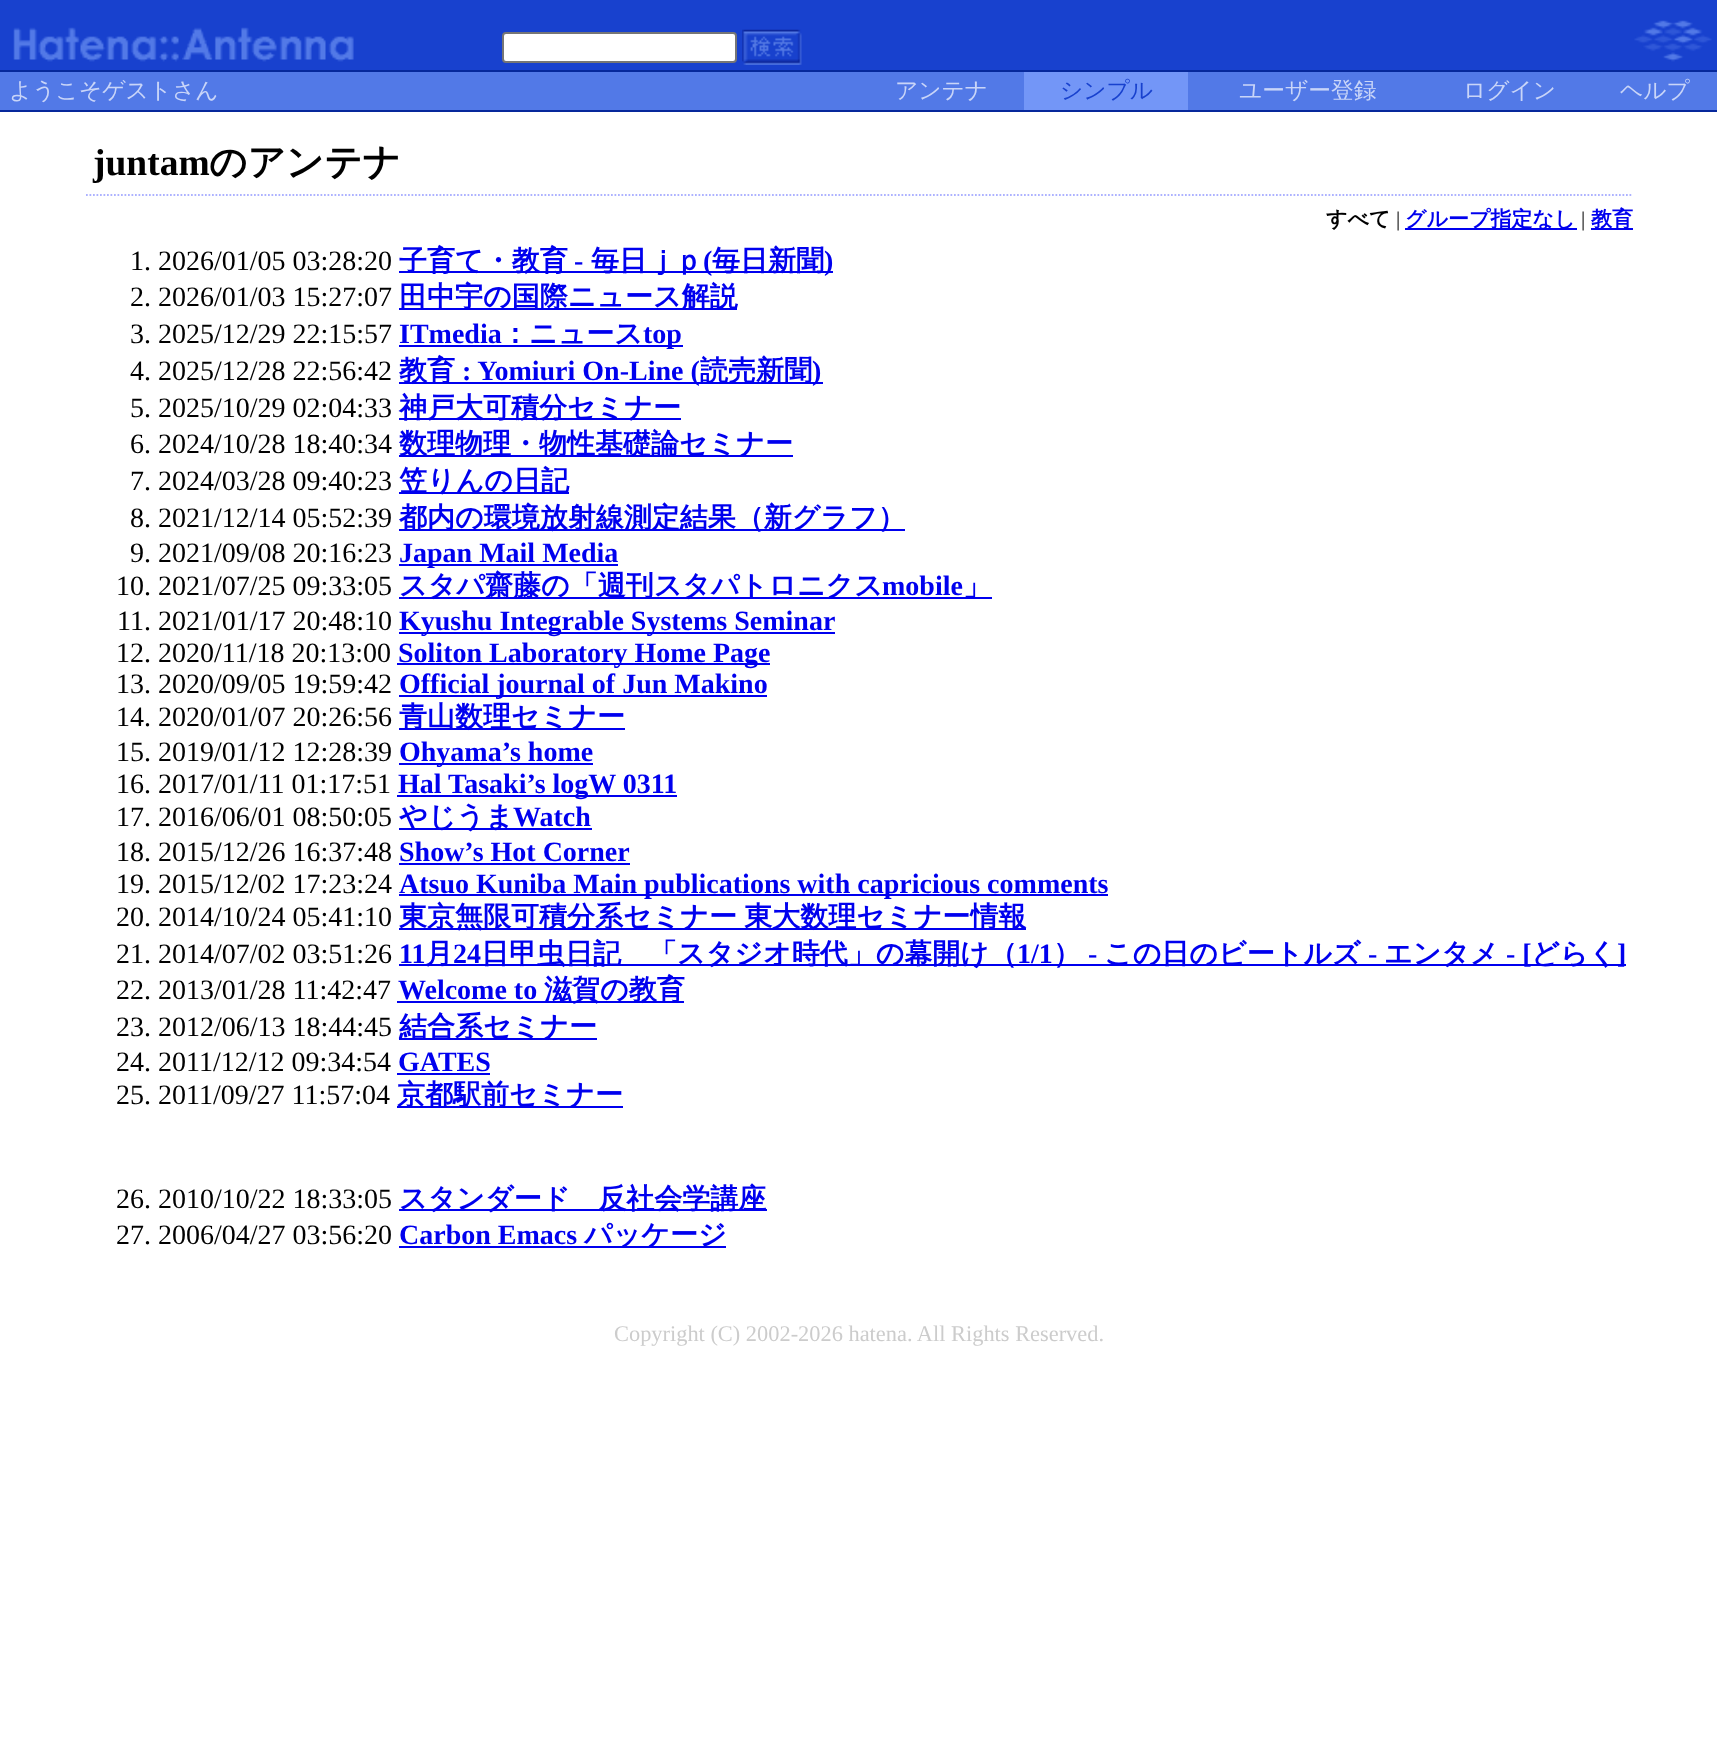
(async () => {
  const canvas = document.querySelector("canvas");
  canvas.width = 1717;
  canvas.height = 1738;
  const ctx = canvas.getContext("2d");
  ctx.miterLimit = 4;
  ctx.fontKerning = "normal";
  async function loadImage(src) {
    const img = new Image();
    img.src = src;
    await img.decode();
    return img;
  }
  let path;

  ctx.fillStyle = "#ffffff";
  ctx.fillRect(0, 0, 1717, 1738);
  ctx.fillStyle = "#1841ce";
  ctx.fillRect(0, 0, 1717, 70);
  ctx.drawImage(await loadImage("img/1.png"), 13, 27, 166, 35);
  ctx.drawImage(await loadImage("img/2.png"), 182, 27, 172, 35);
  ctx.fillStyle = "#ffffff";
  ctx.beginPath();
  ctx.roundRect(503, 33, 233, 29, 3);
  ctx.fill();
  ctx.strokeStyle = "#767676";
  ctx.lineWidth = 2;
  ctx.stroke();
  ctx.drawImage(await loadImage("img/3.png"), 742, 29, 60, 36);
  ctx.drawImage(await loadImage("img/4.png"), 1634, 20, 78, 42);
  for (const [x, y, w, h, color] of [
    [0, 70, 1717, 2, "#06289b"],
    [0, 72, 1024, 38, "#5279e7"],
    [1024, 72, 164, 38, "#7396f7"],
    [1188, 72, 529, 38, "#5279e7"],
    [0, 110, 1717, 2, "#06289b"],
  ]) {
    ctx.fillStyle = color;
    ctx.fillRect(x, y, w, h);
  }
  path = new Path2D("M86 195H1633");
  ctx.strokeStyle = "#adb2ff";
  ctx.lineWidth = 1.8;
  ctx.setLineDash([1.75, 1.75]);
  ctx.stroke(path);
  for (const [x, y, w, h, color] of [
    [1405, 228, 172, 2, "#0000ee"],
    [1591, 228, 42, 2, "#0000ee"],
    [399, 271, 434, 2, "#0000ee"],
    [399, 308, 338, 2, "#0000ee"],
    [399, 345, 284, 2, "#0000ee"],
    [399, 382, 424, 2, "#0000ee"],
    [399, 418, 282, 2, "#0000ee"],
    [399, 455, 394, 2, "#0000ee"],
    [399, 492, 170, 2, "#0000ee"],
    [399, 529, 506, 2, "#0000ee"],
    [399, 564, 219, 2, "#0000ee"],
    [399, 597, 593, 2, "#0000ee"],
    [399, 632, 436, 2, "#0000ee"],
    [397, 663, 373, 2, "#0000ee"],
    [399, 695, 368, 2, "#0000ee"],
    [399, 728, 226, 2, "#0000ee"],
    [399, 763, 194, 2, "#0000ee"],
    [397, 795, 280, 2, "#0000ee"],
    [399, 828, 193, 2, "#0000ee"],
    [399, 863, 231, 2, "#0000ee"],
    [399, 894, 709, 2, "#0000ee"],
    [399, 928, 627, 2, "#0000ee"],
    [399, 964, 1227, 2, "#0000ee"],
    [397, 1001, 287, 2, "#0000ee"],
    [399, 1038, 198, 2, "#0000ee"],
    [397, 1073, 93, 2, "#0000ee"],
    [397, 1106, 226, 2, "#0000ee"],
    [399, 1209, 368, 2, "#0000ee"],
    [399, 1246, 327, 2, "#0000ee"],
  ]) {
    ctx.fillStyle = color;
    ctx.fillRect(x, y, w, h);
  }
  ctx.font = "500 22.75px WenQuanYi Zen Hei";
  ctx.fillStyle = "#c9d5f8";
  ctx.fillText("ようこそゲストさん", 9, 98);
  ctx.fillText("アンテナ", 895, 98);
  ctx.fillStyle = "#1841ce";
  ctx.fillText("シンプル", 1060, 98);
  ctx.fillStyle = "#c9d5f8";
  for (const [text, x, y] of [
    ["ユーザー登録", 1239, 98],
    ["ログイン", 1463, 98],
    ["ヘルプ", 1620, 98],
  ]) {
    ctx.fillText(text, x, y);
  }
  ctx.font = "bold 37.5px Liberation Serif";
  ctx.fillStyle = "#000000";
  ctx.fillText("juntam", 93, 175);
  ctx.font = "bold 37.5px WenQuanYi Zen Hei";
  ctx.fillText("のアンテナ", 209, 175);
  ctx.font = "bold 21px WenQuanYi Zen Hei";
  ctx.fillText("すべて", 1326, 226);
  ctx.font = "21px Liberation Serif";
  ctx.fillText("|", 1396, 226);
  ctx.font = "bold 21px WenQuanYi Zen Hei";
  ctx.fillStyle = "#0000ee";
  ctx.fillText("グループ指定なし", 1405, 226);
  ctx.font = "21px Liberation Serif";
  ctx.fillStyle = "#000000";
  ctx.fillText("|", 1581, 226);
  ctx.font = "bold 21px WenQuanYi Zen Hei";
  ctx.fillStyle = "#0000ee";
  ctx.fillText("教育", 1591, 226);
  ctx.font = "28px Liberation Serif";
  ctx.fillStyle = "#000000";
  ctx.fillText("1. 2026/01/05 03:28:20", 130, 270);
  ctx.font = "bold 28px WenQuanYi Zen Hei";
  ctx.fillStyle = "#0000ee";
  ctx.fillText("子育て・教育", 399, 270);
  ctx.font = "bold 28px Liberation Serif";
  ctx.fillText("-", 574, 270);
  ctx.font = "bold 28px WenQuanYi Zen Hei";
  ctx.fillText("毎日ｊｐ", 591, 270);
  ctx.font = "bold 28px Liberation Serif";
  ctx.fillText("(", 703, 270);
  ctx.font = "bold 28px WenQuanYi Zen Hei";
  ctx.fillText("毎日新聞", 712, 270);
  ctx.font = "bold 28px Liberation Serif";
  ctx.fillText(")", 824, 270);
  ctx.font = "28px Liberation Serif";
  ctx.fillStyle = "#000000";
  ctx.fillText("2. 2026/01/03 15:27:07", 130, 306);
  ctx.font = "bold 28px WenQuanYi Zen Hei";
  ctx.fillStyle = "#0000ee";
  ctx.fillText("田中宇の国際ニュース解説", 399, 306);
  ctx.font = "28px Liberation Serif";
  ctx.fillStyle = "#000000";
  ctx.fillText("3. 2025/12/29 22:15:57", 130, 343);
  ctx.font = "bold 28px Liberation Serif";
  ctx.fillStyle = "#0000ee";
  ctx.fillText("ITmedia", 399, 343);
  ctx.font = "bold 28px WenQuanYi Zen Hei";
  ctx.fillText("：ニュース", 501, 343);
  ctx.font = "bold 28px Liberation Serif";
  ctx.fillText("top", 643, 343);
  ctx.font = "28px Liberation Serif";
  ctx.fillStyle = "#000000";
  ctx.fillText("4. 2025/12/28 22:56:42", 130, 380);
  ctx.font = "bold 28px WenQuanYi Zen Hei";
  ctx.fillStyle = "#0000ee";
  ctx.fillText("教育", 399, 380);
  ctx.font = "bold 28px Liberation Serif";
  ctx.fillText(": Yomiuri On-Line (", 462, 380);
  ctx.font = "bold 28px WenQuanYi Zen Hei";
  ctx.fillText("読売新聞", 700, 380);
  ctx.font = "bold 28px Liberation Serif";
  ctx.fillText(")", 812, 380);
  ctx.font = "28px Liberation Serif";
  ctx.fillStyle = "#000000";
  ctx.fillText("5. 2025/10/29 02:04:33", 130, 417);
  ctx.font = "bold 28px WenQuanYi Zen Hei";
  ctx.fillStyle = "#0000ee";
  ctx.fillText("神戸大可積分セミナー", 399, 417);
  ctx.font = "28px Liberation Serif";
  ctx.fillStyle = "#000000";
  ctx.fillText("6. 2024/10/28 18:40:34", 130, 453);
  ctx.font = "bold 28px WenQuanYi Zen Hei";
  ctx.fillStyle = "#0000ee";
  ctx.fillText("数理物理・物性基礎論セミナー", 399, 453);
  ctx.font = "28px Liberation Serif";
  ctx.fillStyle = "#000000";
  ctx.fillText("7. 2024/03/28 09:40:23", 130, 490);
  ctx.font = "bold 28px WenQuanYi Zen Hei";
  ctx.fillStyle = "#0000ee";
  ctx.fillText("笠りんの日記", 399, 490);
  ctx.font = "28px Liberation Serif";
  ctx.fillStyle = "#000000";
  ctx.fillText("8. 2021/12/14 05:52:39", 130, 527);
  ctx.font = "bold 28px WenQuanYi Zen Hei";
  ctx.fillStyle = "#0000ee";
  ctx.fillText("都内の環境放射線測定結果（新グラフ）", 399, 527);
  ctx.font = "28px Liberation Serif";
  ctx.fillStyle = "#000000";
  ctx.fillText("9. 2021/09/08 20:16:23", 130, 562);
  ctx.font = "bold 28px Liberation Serif";
  ctx.fillStyle = "#0000ee";
  ctx.fillText("Japan Mail Media", 399, 562);
  ctx.font = "28px Liberation Serif";
  ctx.fillStyle = "#000000";
  ctx.fillText("10. 2021/07/25 09:33:05", 116, 595);
  ctx.font = "bold 28px WenQuanYi Zen Hei";
  ctx.fillStyle = "#0000ee";
  ctx.fillText("スタパ齋藤の「週刊スタパトロニクス", 399, 595);
  ctx.font = "bold 28px Liberation Serif";
  ctx.fillText("mobile", 882, 595);
  ctx.font = "bold 28px WenQuanYi Zen Hei";
  ctx.fillText("」", 963, 595);
  ctx.font = "28px Liberation Serif";
  ctx.fillStyle = "#000000";
  ctx.fillText("11. 2021/01/17 20:48:10", 117, 630);
  ctx.font = "bold 28px Liberation Serif";
  ctx.fillStyle = "#0000ee";
  ctx.fillText("Kyushu Integrable Systems Seminar", 399, 630);
  ctx.font = "28px Liberation Serif";
  ctx.fillStyle = "#000000";
  ctx.fillText("12. 2020/11/18 20:13:00", 116, 662);
  ctx.font = "bold 28px Liberation Serif";
  ctx.fillStyle = "#0000ee";
  ctx.fillText("Soliton Laboratory Home Page", 398, 662);
  ctx.font = "28px Liberation Serif";
  ctx.fillStyle = "#000000";
  ctx.fillText("13. 2020/09/05 19:59:42", 116, 693);
  ctx.font = "bold 28px Liberation Serif";
  ctx.fillStyle = "#0000ee";
  ctx.fillText("Official journal of Jun Makino", 399, 693);
  ctx.font = "28px Liberation Serif";
  ctx.fillStyle = "#000000";
  ctx.fillText("14. 2020/01/07 20:26:56", 116, 726);
  ctx.font = "bold 28px WenQuanYi Zen Hei";
  ctx.fillStyle = "#0000ee";
  ctx.fillText("青山数理セミナー", 399, 726);
  ctx.font = "28px Liberation Serif";
  ctx.fillStyle = "#000000";
  ctx.fillText("15. 2019/01/12 12:28:39", 116, 761);
  ctx.font = "bold 28px Liberation Serif";
  ctx.fillStyle = "#0000ee";
  ctx.fillText("Ohyama’s home", 399, 761);
  ctx.font = "28px Liberation Serif";
  ctx.fillStyle = "#000000";
  ctx.fillText("16. 2017/01/11 01:17:51", 116, 793);
  ctx.font = "bold 28px Liberation Serif";
  ctx.fillStyle = "#0000ee";
  ctx.fillText("Hal Tasaki’s logW 0311", 398, 793);
  ctx.font = "28px Liberation Serif";
  ctx.fillStyle = "#000000";
  ctx.fillText("17. 2016/06/01 08:50:05", 116, 826);
  ctx.font = "bold 28px WenQuanYi Zen Hei";
  ctx.fillStyle = "#0000ee";
  ctx.fillText("やじうま", 399, 826);
  ctx.font = "bold 28px Liberation Serif";
  ctx.fillText("Watch", 513, 826);
  ctx.font = "28px Liberation Serif";
  ctx.fillStyle = "#000000";
  ctx.fillText("18. 2015/12/26 16:37:48", 116, 861);
  ctx.font = "bold 28px Liberation Serif";
  ctx.fillStyle = "#0000ee";
  ctx.fillText("Show’s Hot Corner", 399, 861);
  ctx.font = "28px Liberation Serif";
  ctx.fillStyle = "#000000";
  ctx.fillText("19. 2015/12/02 17:23:24", 116, 893);
  ctx.font = "bold 28px Liberation Serif";
  ctx.fillStyle = "#0000ee";
  ctx.fillText("Atsuo Kuniba Main publications with capricious comments", 399, 893);
  ctx.font = "28px Liberation Serif";
  ctx.fillStyle = "#000000";
  ctx.fillText("20. 2014/10/24 05:41:10", 116, 926);
  ctx.wordSpacing = "-1px";
  ctx.font = "bold 28px WenQuanYi Zen Hei";
  ctx.fillStyle = "#0000ee";
  ctx.fillText("東京無限可積分系セミナー 東大数理セミナー情報", 399, 926);
  ctx.wordSpacing = "0px";
  ctx.font = "28px Liberation Serif";
  ctx.fillStyle = "#000000";
  ctx.fillText("21. 2014/07/02 03:51:26", 116, 963);
  ctx.font = "bold 28px Liberation Serif";
  ctx.fillStyle = "#0000ee";
  ctx.fillText("11", 399, 963);
  ctx.font = "bold 28px WenQuanYi Zen Hei";
  ctx.fillText("月", 425, 963);
  ctx.font = "bold 28px Liberation Serif";
  ctx.fillText("24", 453, 963);
  ctx.font = "bold 28px WenQuanYi Zen Hei";
  ctx.fillText("日甲虫日記　「スタジオ時代」の幕開け（", 481, 963);
  ctx.font = "bold 28px Liberation Serif";
  ctx.fillText("1/1", 1017, 963);
  ctx.font = "bold 28px WenQuanYi Zen Hei";
  ctx.fillText("）", 1053, 963);
  ctx.font = "bold 28px Liberation Serif";
  ctx.fillText("-", 1088, 963);
  ctx.font = "bold 28px WenQuanYi Zen Hei";
  ctx.fillText("この日のビートルズ", 1104, 963);
  ctx.font = "bold 28px Liberation Serif";
  ctx.fillText("-", 1368, 963);
  ctx.font = "bold 28px WenQuanYi Zen Hei";
  ctx.fillText("エンタメ", 1384, 963);
  ctx.font = "bold 28px Liberation Serif";
  ctx.fillText("- [", 1506, 963);
  ctx.font = "bold 28px WenQuanYi Zen Hei";
  ctx.fillText("どらく", 1531, 963);
  ctx.font = "bold 28px Liberation Serif";
  ctx.fillText("]", 1617, 963);
  ctx.font = "28px Liberation Serif";
  ctx.fillStyle = "#000000";
  ctx.fillText("22. 2013/01/28 11:42:47", 116, 999);
  ctx.font = "bold 28px Liberation Serif";
  ctx.fillStyle = "#0000ee";
  ctx.fillText("Welcome to", 398, 999);
  ctx.font = "bold 28px WenQuanYi Zen Hei";
  ctx.fillText("滋賀の教育", 544, 999);
  ctx.font = "28px Liberation Serif";
  ctx.fillStyle = "#000000";
  ctx.fillText("23. 2012/06/13 18:44:45", 116, 1036);
  ctx.font = "bold 28px WenQuanYi Zen Hei";
  ctx.fillStyle = "#0000ee";
  ctx.fillText("結合系セミナー", 399, 1036);
  ctx.font = "28px Liberation Serif";
  ctx.fillStyle = "#000000";
  ctx.fillText("24. 2011/12/12 09:34:54", 116, 1071);
  ctx.font = "bold 28px Liberation Serif";
  ctx.fillStyle = "#0000ee";
  ctx.fillText("GATES", 398, 1071);
  ctx.font = "28px Liberation Serif";
  ctx.fillStyle = "#000000";
  ctx.fillText("25. 2011/09/27 11:57:04", 116, 1104);
  ctx.font = "bold 28px WenQuanYi Zen Hei";
  ctx.fillStyle = "#0000ee";
  ctx.fillText("京都駅前セミナー", 397, 1104);
  ctx.font = "28px Liberation Serif";
  ctx.fillStyle = "#000000";
  ctx.fillText("26. 2010/10/22 18:33:05", 116, 1208);
  ctx.font = "bold 28px WenQuanYi Zen Hei";
  ctx.fillStyle = "#0000ee";
  ctx.fillText("スタンダード　反社会学講座", 399, 1208);
  ctx.font = "28px Liberation Serif";
  ctx.fillStyle = "#000000";
  ctx.fillText("27. 2006/04/27 03:56:20", 116, 1244);
  ctx.font = "bold 28px Liberation Serif";
  ctx.fillStyle = "#0000ee";
  ctx.fillText("Carbon Emacs", 399, 1244);
  ctx.font = "bold 28px WenQuanYi Zen Hei";
  ctx.fillText("パッケージ", 584, 1244);
  ctx.font = "22.4px Liberation Serif";
  ctx.fillStyle = "#cccccc";
  ctx.fillText("Copyright (C) 2002-2026 hatena. All Rights Reserved.", 614, 1341);
})();
